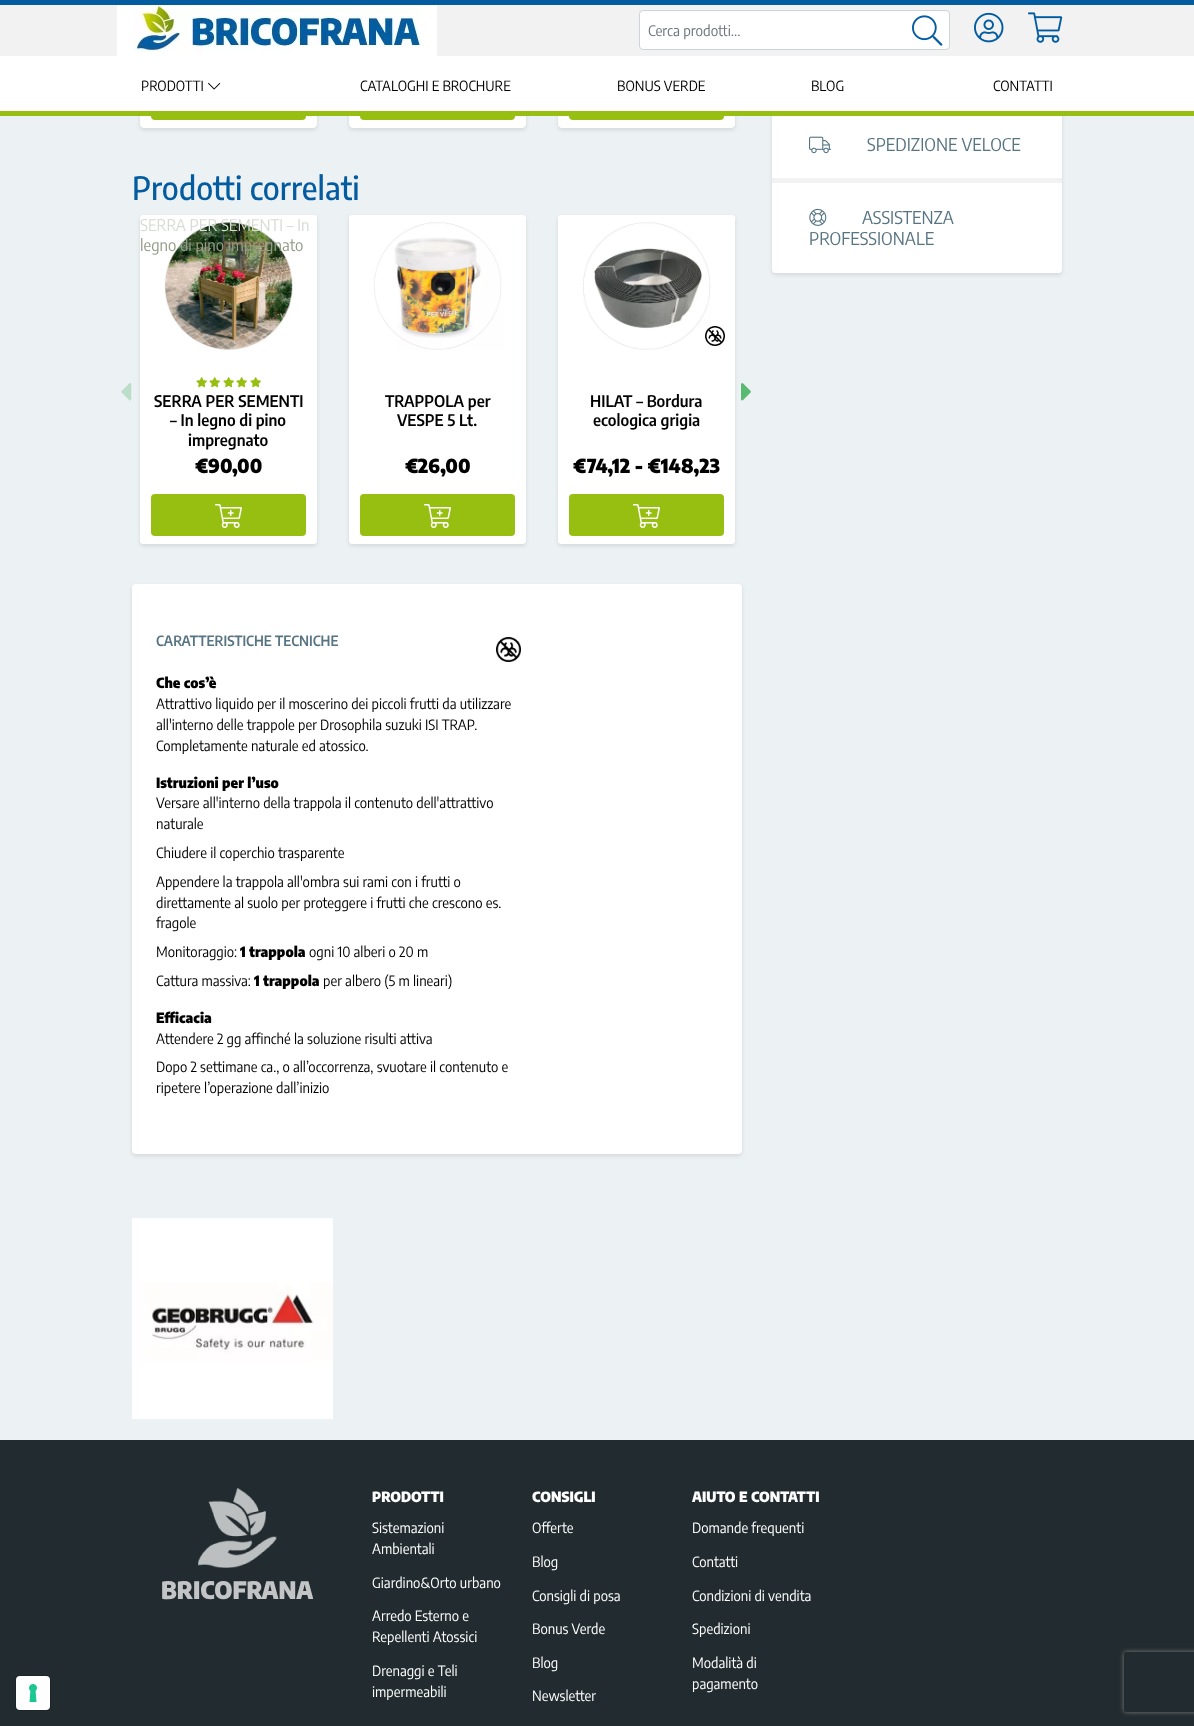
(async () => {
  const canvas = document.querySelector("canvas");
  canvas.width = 1194;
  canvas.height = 1726;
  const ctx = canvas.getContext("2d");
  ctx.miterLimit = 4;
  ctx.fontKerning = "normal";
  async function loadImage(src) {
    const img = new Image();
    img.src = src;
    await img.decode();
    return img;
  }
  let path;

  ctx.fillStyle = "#ecf1f4";
  ctx.fillRect(0, 0, 1194, 1726);
  ctx.fillStyle = "#222b2f";
  ctx.fillRect(0, 1440, 1194, 286);
  ctx.beginPath();
  ctx.roundRect(15.5, 1675.5, 35, 35, 4.5);
  ctx.strokeStyle = "#1d2528";
  ctx.stroke();
  ctx.fillStyle = "#ffffff";
  ctx.beginPath();
  ctx.roundRect(16, 1676, 34, 34, 4);
  ctx.fill();
  ctx.drawImage(await loadImage("img/1.png"), 29, 1684, 8, 18);
  ctx.fillStyle = "rgba(0, 0, 0, 0.1)";
  ctx.filter = "blur(2px)";
  ctx.beginPath();
  ctx.roundRect(140, -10, 177, 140, 4);
  ctx.fill();
  ctx.filter = "none";
  ctx.fillStyle = "#ffffff";
  path = new Path2D("M140-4H317V124C317 126 315 128 313 128H144C142 128 140 126 140 124Z");
  ctx.fill(path);
  ctx.fillStyle = "rgba(0, 0, 0, 0.1)";
  ctx.filter = "blur(2px)";
  ctx.beginPath();
  ctx.roundRect(349, -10, 177, 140, 4);
  ctx.fill();
  ctx.filter = "none";
  ctx.fillStyle = "#ffffff";
  path = new Path2D("M349-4H526V124C526 126 524 128 522 128H353C351 128 349 126 349 124Z");
  ctx.fill(path);
  ctx.fillStyle = "rgba(0, 0, 0, 0.1)";
  ctx.filter = "blur(2px)";
  ctx.beginPath();
  ctx.roundRect(558, -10, 177, 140, 4);
  ctx.fill();
  ctx.filter = "none";
  ctx.fillStyle = "#ffffff";
  path = new Path2D("M558-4H735V124C735 126 733 128 731 128H562C560 128 558 126 558 124Z");
  ctx.fill(path);
  ctx.fillStyle = "rgba(0, 0, 0, 0.1)";
  ctx.filter = "blur(2px)";
  ctx.beginPath();
  ctx.roundRect(772, 38, 290, 237, 4);
  ctx.fill();
  ctx.filter = "none";
  ctx.fillStyle = "#f2f2f2";
  ctx.beginPath();
  ctx.roundRect(772, 36, 290, 237, 4);
  ctx.fill();
  for (const [x, y, w, h, color] of [
    [0, 5, 1194, 51, "#f2f2f2"],
    [0, 0, 1194, 5, "#035ca0"],
    [117, 5, 320, 51, "#ffffff"],
  ]) {
    ctx.fillStyle = color;
    ctx.fillRect(x, y, w, h);
  }
  ctx.drawImage(await loadImage("img/2.png"), 133, 5, 288, 48);
  ctx.beginPath();
  ctx.roundRect(639.5, 10.5, 310, 39, 3.5);
  ctx.fill();
  ctx.strokeStyle = "#ced4da";
  ctx.stroke();
  ctx.drawImage(await loadImage("img/3.png"), 912, 15, 31, 31);
  ctx.drawImage(await loadImage("img/4.png"), 974, 12, 30, 31);
  ctx.drawImage(await loadImage("img/5.png"), 1028, 12, 35, 31);
  ctx.fillStyle = "#97bf12";
  ctx.beginPath();
  ctx.roundRect(151, 79, 155, 41, 4);
  ctx.fill();
  ctx.beginPath();
  ctx.roundRect(360, 79, 155, 41, 4);
  ctx.fill();
  ctx.beginPath();
  ctx.roundRect(569, 79, 155, 41, 4);
  ctx.fill();
  ctx.fillStyle = "#ffffff";
  ctx.fillRect(0, 56, 1194, 55);
  ctx.drawImage(await loadImage("img/6.png"), 208, 82, 13, 8);
  ctx.fillStyle = "#97bf12";
  ctx.fillRect(0, 111, 1194, 5);
  ctx.drawImage(await loadImage("img/7.png"), 121, 383, 11, 18);
  ctx.fillStyle = "rgba(0, 0, 0, 0.1)";
  ctx.filter = "blur(2px)";
  ctx.beginPath();
  ctx.roundRect(140, 217, 177, 329, 4);
  ctx.fill();
  ctx.filter = "none";
  ctx.fillStyle = "#ffffff";
  ctx.beginPath();
  ctx.roundRect(140, 215, 177, 329, 4);
  ctx.fill();
  ctx.drawImage(await loadImage("img/8.png"), 140, 215, 177, 135);
  ctx.beginPath();
  ctx.roundRect(140, 356, 177, 188, [0, 0, 4, 4]);
  ctx.fill();
  ctx.drawImage(await loadImage("img/9.png"), 196, 377, 11, 11);
  ctx.drawImage(await loadImage("img/9.png"), 209, 377, 11, 11);
  ctx.drawImage(await loadImage("img/9.png"), 223, 377, 11, 11);
  ctx.drawImage(await loadImage("img/9.png"), 236, 377, 11, 11);
  ctx.drawImage(await loadImage("img/9.png"), 250, 377, 11, 11);
  ctx.fillStyle = "#97bf12";
  ctx.beginPath();
  ctx.roundRect(151, 494, 155, 42, 4);
  ctx.fill();
  ctx.drawImage(await loadImage("img/10.png"), 215, 504, 27, 24);
  ctx.fillStyle = "rgba(0, 0, 0, 0.1)";
  ctx.filter = "blur(2px)";
  ctx.beginPath();
  ctx.roundRect(349, 217, 177, 329, 4);
  ctx.fill();
  ctx.filter = "none";
  ctx.fillStyle = "#ffffff";
  ctx.beginPath();
  ctx.roundRect(349, 215, 177, 329, 4);
  ctx.fill();
  ctx.drawImage(await loadImage("img/11.png"), 349, 215, 177, 135);
  ctx.beginPath();
  ctx.roundRect(349, 356, 177, 188, [0, 0, 4, 4]);
  ctx.fill();
  ctx.fillStyle = "#97bf12";
  ctx.beginPath();
  ctx.roundRect(360, 494, 155, 42, 4);
  ctx.fill();
  ctx.drawImage(await loadImage("img/10.png"), 424, 504, 27, 24);
  ctx.fillStyle = "rgba(0, 0, 0, 0.1)";
  ctx.filter = "blur(2px)";
  ctx.beginPath();
  ctx.roundRect(558, 217, 177, 329, 4);
  ctx.fill();
  ctx.filter = "none";
  ctx.fillStyle = "#ffffff";
  ctx.beginPath();
  ctx.roundRect(558, 215, 177, 329, 4);
  ctx.fill();
  ctx.drawImage(await loadImage("img/12.png"), 558, 215, 177, 135);
  ctx.drawImage(await loadImage("img/13.png"), 705, 326, 20, 20);
  ctx.beginPath();
  ctx.roundRect(558, 356, 177, 188, [0, 0, 4, 4]);
  ctx.fill();
  ctx.fillStyle = "#97bf12";
  ctx.beginPath();
  ctx.roundRect(569, 494, 155, 42, 4);
  ctx.fill();
  ctx.drawImage(await loadImage("img/10.png"), 633, 504, 27, 24);
  ctx.drawImage(await loadImage("img/14.png"), 741, 383, 10, 18);
  ctx.fillStyle = "rgba(0, 0, 0, 0.1)";
  ctx.filter = "blur(2px)";
  ctx.beginPath();
  ctx.roundRect(132, 586, 610, 570, 4);
  ctx.fill();
  ctx.filter = "none";
  ctx.fillStyle = "#ffffff";
  ctx.beginPath();
  ctx.roundRect(132, 584, 610, 570, 4);
  ctx.fill();
  ctx.drawImage(await loadImage("img/15.png"), 496, 637, 25, 25);
  ctx.fillRect(772, 116, 290, 62);
  ctx.drawImage(await loadImage("img/16.png"), 809, 136, 22, 18);
  ctx.beginPath();
  ctx.roundRect(772, 183, 290, 90, [0, 0, 4, 4]);
  ctx.fill();
  ctx.drawImage(await loadImage("img/17.png"), 809, 208, 18, 18);
  ctx.save();
  path = new Path2D("M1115 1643H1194V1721H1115ZM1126 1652H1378C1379 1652 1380 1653 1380 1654V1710C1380 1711 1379 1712 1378 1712H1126C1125 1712 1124 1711 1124 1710V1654C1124 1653 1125 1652 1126 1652Z");
  ctx.clip(path, "evenodd");
  ctx.fillStyle = "#808080";
  ctx.filter = "blur(2.5px)";
  ctx.beginPath();
  ctx.roundRect(1124, 1652, 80, 60, 2);
  ctx.fill();
  ctx.filter = "none";
  ctx.restore();
  ctx.drawImage(await loadImage("img/18.png"), 132, 1218, 201, 202);
  ctx.drawImage(await loadImage("img/19.png"), 198, 1488, 79, 80);
  ctx.font = "14.5px Encode Sans Semi Condensed";
  ctx.fillStyle = "#6c757d";
  ctx.fillText("Cerca prodotti...", 648, 36);
  ctx.font = "14px Encode Sans Semi Condensed";
  ctx.fillStyle = "#000000";
  for (const [text, x, y] of [
    ["PRODOTTI", 141, 91],
    ["CATALOGHI E BROCHURE", 360, 91],
    ["BONUS VERDE", 617, 91],
    ["BLOG", 811, 91],
    ["CONTATTI", 993, 91],
  ]) {
    ctx.fillText(text, x, y);
  }
  ctx.font = "500 32px Encode Sans Semi Condensed";
  ctx.fillStyle = "#035ca0";
  ctx.fillText("Prodotti correlati", 132, 200);
  ctx.font = "16px Encode Sans Semi Condensed";
  ctx.fillStyle = "#d7dbd5";
  ctx.fillText("SERRA PER SEMENTI – In", 140, 231);
  ctx.fillStyle = "#939c87";
  ctx.fillText("legno di pino impregnato", 140, 251);
  ctx.font = "600 16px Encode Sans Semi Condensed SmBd";
  ctx.fillStyle = "#000000";
  for (const [text, x, y] of [
    ["SERRA PER SEMENTI", 154, 407],
    ["– In legno di pino", 170, 426],
    ["impregnato", 188, 446],
  ]) {
    ctx.fillText(text, x, y);
  }
  ctx.font = "900 19.25px Encode Sans Semi Condensed";
  ctx.fillText("€90,00", 195, 473);
  ctx.font = "600 16px Encode Sans Semi Condensed SmBd";
  ctx.fillText("TRAPPOLA per", 385, 407);
  ctx.fillText("VESPE 5 Lt.", 397, 426);
  ctx.font = "900 19.25px Encode Sans Semi Condensed";
  ctx.fillText("€", 405, 473);
  ctx.fillText("26,00", 418, 473);
  ctx.font = "600 16px Encode Sans Semi Condensed SmBd";
  ctx.fillText("HILAT – Bordura", 590, 407);
  ctx.fillText("ecologica grigia", 593, 426);
  ctx.font = "900 19.25px Encode Sans Semi Condensed";
  ctx.fillText("€", 573, 473);
  ctx.fillText("74,12 - €148,23", 587, 473);
  ctx.font = "600 14.1px Encode Sans Semi Condensed SmBd";
  ctx.fillStyle = "#577483";
  ctx.fillText("CARATTERISTICHE TECNICHE", 156, 646);
  ctx.font = "900 14.1px Encode Sans Semi Condensed";
  ctx.fillStyle = "#000000";
  ctx.fillText("Che cos’è", 156, 688);
  ctx.font = "14.1px Encode Sans Semi Condensed";
  for (const [text, x, y] of [
    ["Attrattivo liquido per il moscerino dei piccoli frutti da utilizzare", 156, 709],
    ["all'interno delle trappole per Drosophila suzuki ISI TRAP.", 156, 730],
    ["Completamente naturale ed atossico.", 156, 751],
  ]) {
    ctx.fillText(text, x, y);
  }
  ctx.font = "900 14.1px Encode Sans Semi Condensed";
  ctx.fillText("Istruzioni per l’uso", 156, 788);
  ctx.font = "14.1px Encode Sans Semi Condensed";
  for (const [text, x, y] of [
    ["Versare all'interno della trappola il contenuto dell'attrattivo", 156, 808],
    ["naturale", 156, 829],
    ["Chiudere il coperchio trasparente", 156, 858],
    ["Appendere la trappola all'ombra sui rami con i frutti o", 156, 887],
    ["direttamente al suolo per proteggere i frutti che crescono es.", 156, 908],
    ["fragole", 156, 928],
    ["Monitoraggio:", 156, 957],
  ]) {
    ctx.fillText(text, x, y);
  }
  ctx.font = "900 14.1px Encode Sans Semi Condensed";
  ctx.fillText("1 trappola", 240, 957);
  ctx.font = "14.1px Encode Sans Semi Condensed";
  ctx.fillText("ogni 10 alberi o 20 m", 309, 957);
  ctx.fillText("Cattura massiva:", 156, 986);
  ctx.font = "900 14.1px Encode Sans Semi Condensed";
  ctx.fillText("1 trappola", 254, 986);
  ctx.font = "14.1px Encode Sans Semi Condensed";
  ctx.fillText("per albero (5 m lineari)", 323, 986);
  ctx.font = "900 14.1px Encode Sans Semi Condensed";
  ctx.fillText("Efficacia", 156, 1023);
  ctx.font = "14.1px Encode Sans Semi Condensed";
  for (const [text, x, y] of [
    ["Attendere 2 gg affinché la soluzione risulti attiva", 156, 1044],
    ["Dopo 2 settimane ca., o all’occorrenza, svuotare il contenuto e", 156, 1072],
    ["ripetere l’operazione dall’inizio", 156, 1093],
  ]) {
    ctx.fillText(text, x, y);
  }
  ctx.font = "17.5px Encode Sans Semi Condensed";
  ctx.fillStyle = "#577483";
  for (const [text, x, y] of [
    ["SPEDIZIONE VELOCE", 867, 151],
    ["ASSISTENZA", 862, 224],
    ["PROFESSIONALE", 809, 245],
  ]) {
    ctx.fillText(text, x, y);
  }
  ctx.font = "900 24px Encode Sans Semi Condensed";
  ctx.fillStyle = "#c3c4c6";
  ctx.fillText("BRICOFRANA", 161, 1599);
  ctx.font = "900 14.1px Encode Sans Semi Condensed";
  ctx.fillStyle = "#ffffff";
  ctx.fillText("PRODOTTI", 372, 1502);
  ctx.font = "14.1px Encode Sans Semi Condensed";
  for (const [text, x, y] of [
    ["Sistemazioni", 372, 1533],
    ["Ambientali", 372, 1554],
    ["Giardino&Orto urbano", 372, 1588],
    ["Arredo Esterno e", 372, 1621],
    ["Repellenti Atossici", 372, 1642],
    ["Drenaggi e Teli", 372, 1676],
    ["impermeabili", 372, 1697],
  ]) {
    ctx.fillText(text, x, y);
  }
  ctx.font = "900 14.1px Encode Sans Semi Condensed";
  ctx.fillText("CONSIGLI", 532, 1502);
  ctx.font = "14.1px Encode Sans Semi Condensed";
  for (const [text, x, y] of [
    ["Offerte", 532, 1533],
    ["Blog", 532, 1567],
    ["Consigli di posa", 532, 1601],
    ["Bonus Verde", 532, 1634],
    ["Blog", 532, 1668],
    ["Newsletter", 532, 1701],
  ]) {
    ctx.fillText(text, x, y);
  }
  ctx.font = "900 14.1px Encode Sans Semi Condensed";
  ctx.fillText("AIUTO E CONTATTI", 692, 1502);
  ctx.font = "14.1px Encode Sans Semi Condensed";
  for (const [text, x, y] of [
    ["Domande frequenti", 692, 1533],
    ["Contatti", 692, 1567],
    ["Condizioni di vendita", 692, 1601],
    ["Spedizioni", 692, 1634],
    ["Modalità di", 692, 1668],
    ["pagamento", 692, 1689],
  ]) {
    ctx.fillText(text, x, y);
  }
})();
